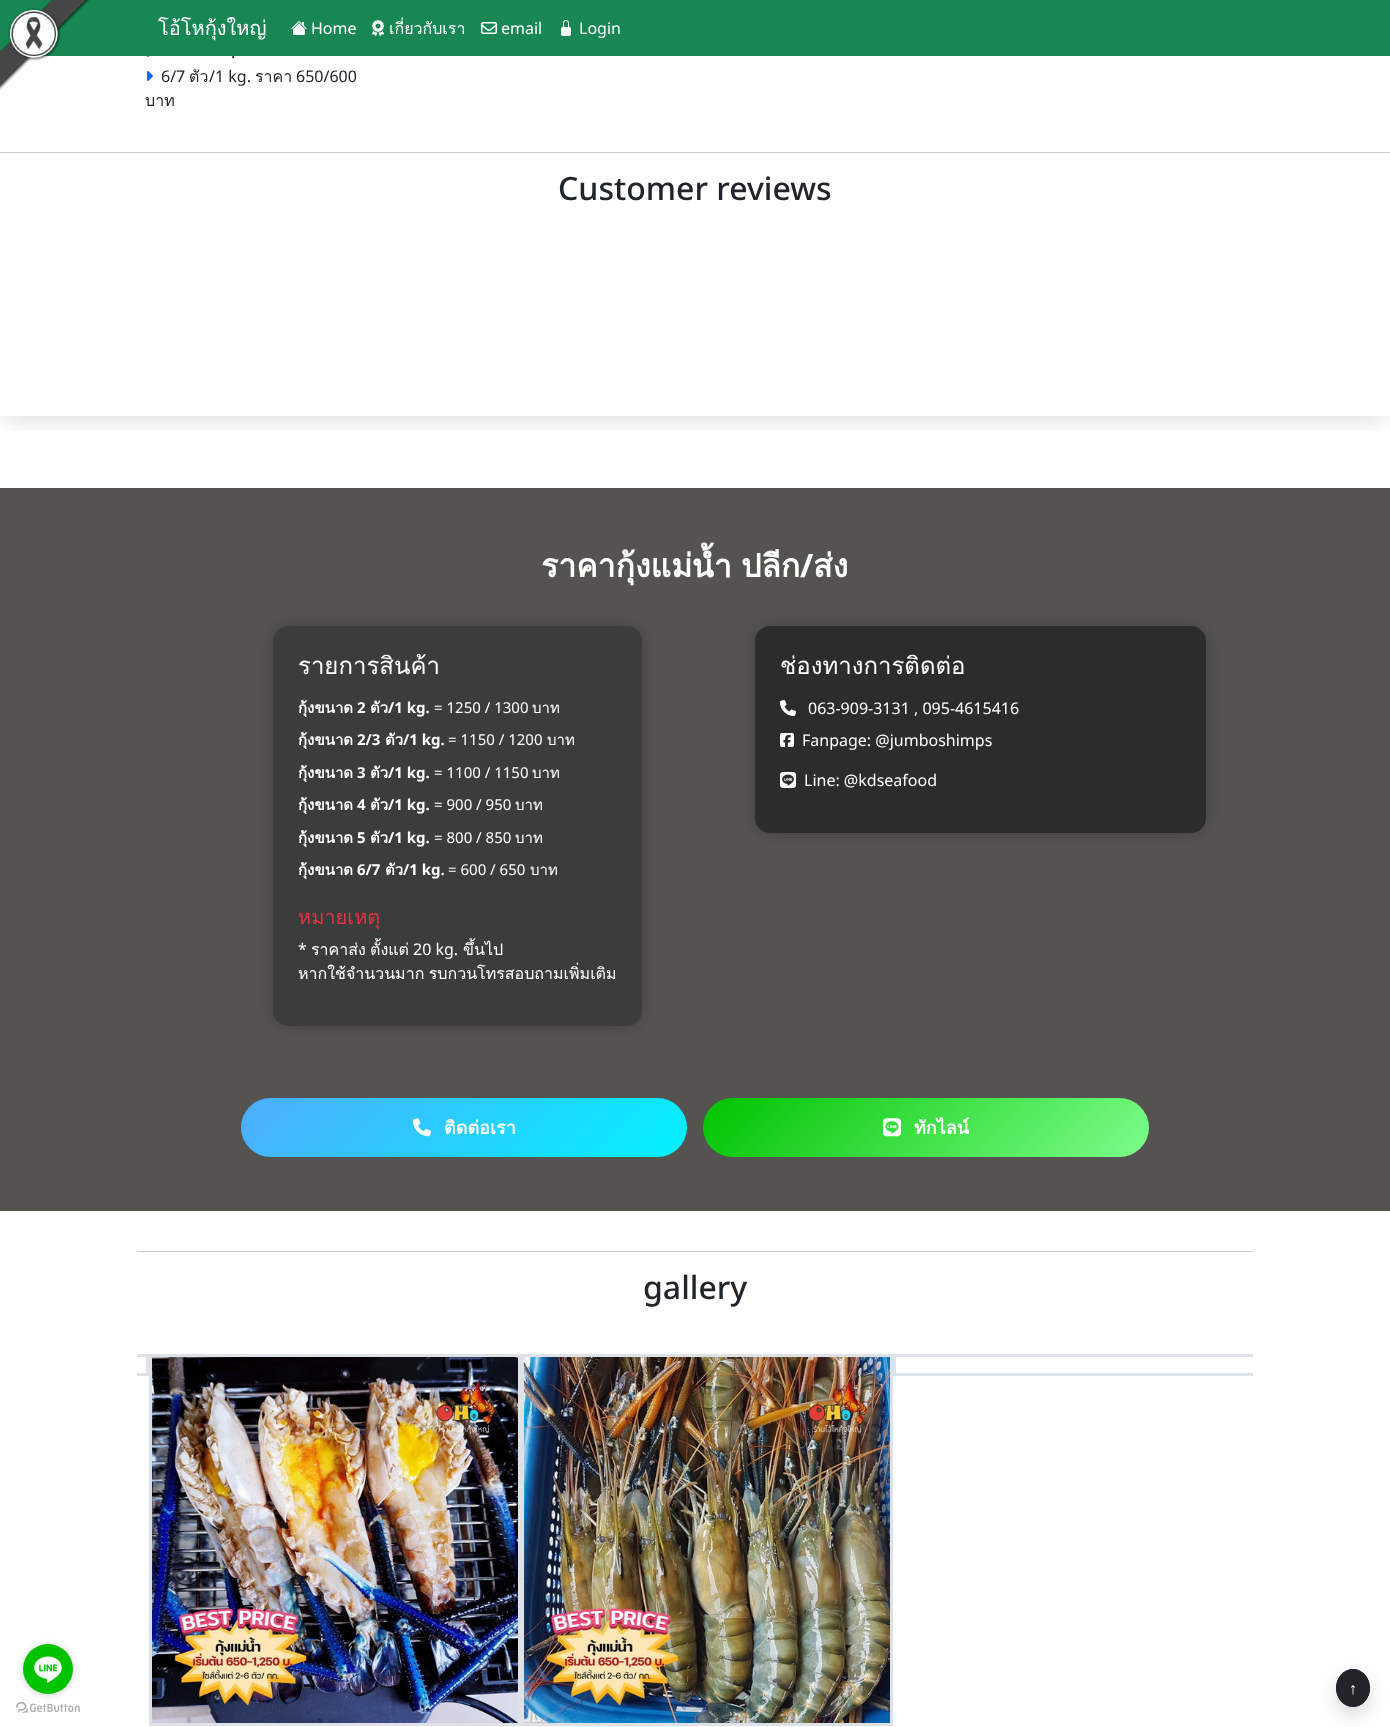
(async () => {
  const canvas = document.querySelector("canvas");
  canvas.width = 1390;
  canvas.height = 1727;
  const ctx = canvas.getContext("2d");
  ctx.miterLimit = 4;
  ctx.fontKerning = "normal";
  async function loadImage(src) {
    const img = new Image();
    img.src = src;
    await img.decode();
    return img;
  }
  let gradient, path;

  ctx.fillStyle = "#ffffff";
  ctx.fillRect(0, 0, 1390, 1727);
  ctx.fillStyle = "#198754";
  ctx.fillRect(0, 0, 1390, 56);
  ctx.drawImage(await loadImage("img/1.png"), 0, 0, 90, 90);
  ctx.drawImage(await loadImage("img/2.png"), 0, 0, 90, 90);
  ctx.drawImage(await loadImage("img/3.png"), 291, 21, 16, 14);
  ctx.drawImage(await loadImage("img/4.png"), 372, 20, 12, 16);
  ctx.drawImage(await loadImage("img/5.png"), 481, 22, 16, 12);
  ctx.drawImage(await loadImage("img/6.png"), 561, 20, 10, 16);
  ctx.drawImage(await loadImage("img/7.png"), 147, 56, 3, 1);
  ctx.drawImage(await loadImage("img/8.png"), 147, 71, 6, 10);
  ctx.fillStyle = "#c8c9ca";
  ctx.fillRect(0, 152, 1390, 1);
  ctx.save();
  ctx.beginPath();
  ctx.rect(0, 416, 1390, 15);
  ctx.clip();
  ctx.fillStyle = "rgba(0, 0, 0, 0.12)";
  ctx.filter = "blur(10px)";
  ctx.beginPath();
  ctx.rect(5, 231, 1380, 190);
  ctx.fill();
  ctx.filter = "none";
  ctx.restore();
  ctx.fillStyle = "#545350";
  ctx.fillRect(0, 488, 1390, 723);
  ctx.fillStyle = "rgba(0, 0, 0, 0.2)";
  ctx.filter = "blur(7.5px)";
  ctx.beginPath();
  ctx.roundRect(273, 626, 369, 400, 15);
  ctx.fill();
  ctx.filter = "none";
  ctx.fillStyle = "#3c3c3c";
  ctx.beginPath();
  ctx.roundRect(273, 626, 369, 400, 15);
  ctx.fill();
  ctx.fillStyle = "rgba(0, 0, 0, 0.2)";
  ctx.filter = "blur(7.5px)";
  ctx.beginPath();
  ctx.roundRect(755, 626, 451, 207, 15);
  ctx.fill();
  ctx.filter = "none";
  ctx.fillStyle = "#2c2c2c";
  ctx.beginPath();
  ctx.roundRect(755, 626, 451, 207, 15);
  ctx.fill();
  ctx.drawImage(await loadImage("img/9.png"), 780, 700, 16, 16);
  ctx.drawImage(await loadImage("img/10.png"), 780, 733, 14, 14);
  ctx.drawImage(await loadImage("img/11.png"), 780, 772, 16, 16);
  gradient = ctx.createLinearGradient(338, 1001, 590, 1254);
  gradient.addColorStop(0, "#4facfe");
  gradient.addColorStop(1, "#00f2fe");
  ctx.fillStyle = gradient;
  ctx.beginPath();
  ctx.roundRect(241, 1098, 446, 59, 29.5);
  ctx.fill();
  ctx.drawImage(await loadImage("img/12.png"), 413, 1118, 18, 19);
  gradient = ctx.createLinearGradient(800, 1001, 1052, 1254);
  gradient.addColorStop(0, "#00c300");
  gradient.addColorStop(1, "#7dfd8b");
  ctx.fillStyle = gradient;
  ctx.beginPath();
  ctx.roundRect(703, 1098, 446, 59, 29.5);
  ctx.fill();
  ctx.drawImage(await loadImage("img/13.png"), 883, 1118, 18, 19);
  ctx.fillStyle = "#c8c9ca";
  ctx.fillRect(137, 1251, 1116, 1);
  ctx.save();
  ctx.beginPath();
  ctx.rect(137, 1354, 1116, 372);
  ctx.clip();
  ctx.strokeStyle = "#dee2e6";
  ctx.lineWidth = 3;
  ctx.strokeRect(-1.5, 1355.5, 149, 19);
  ctx.restore();
  ctx.strokeStyle = "#dee2e6";
  ctx.lineWidth = 3;
  ctx.strokeRect(150.5, 1355.5, 369, 369);
  ctx.drawImage(await loadImage("img/14.png"), 152, 1357, 366, 366);
  ctx.strokeRect(522.5, 1355.5, 369, 369);
  ctx.drawImage(await loadImage("img/15.png"), 524, 1357, 366, 366);
  ctx.save();
  ctx.beginPath();
  ctx.rect(137, 1354, 1116, 372);
  ctx.clip();
  ctx.strokeRect(894.5, 1355.5, 369, 19);
  ctx.restore();
  ctx.drawImage(await loadImage("img/17.png"), 16, 1702, 64, 11);
  ctx.fillStyle = "rgba(136, 136, 136, 0.4)";
  ctx.filter = "blur(3.5px)";
  ctx.beginPath();
  ctx.roundRect(23, 1645, 50, 50, 25);
  ctx.fill();
  ctx.filter = "none";
  ctx.fillStyle = "#00c300";
  ctx.beginPath();
  ctx.arc(48, 1669, 25, 0, Math.PI * 2);
  ctx.fill();
  ctx.drawImage(await loadImage("img/16.png"), 34, 1656, 28, 27);
  ctx.fillStyle = "rgba(0, 0, 0, 0.15)";
  ctx.filter = "blur(8px)";
  ctx.beginPath();
  ctx.roundRect(1336, 1677, 34, 38, 17);
  ctx.fill();
  ctx.filter = "none";
  ctx.fillStyle = "#212529";
  ctx.beginPath();
  ctx.ellipse(1353, 1688, 17, 19, 0, 0, Math.PI * 2);
  ctx.fill();
  path = new Path2D("M1353 1669.5C1362 1669.5 1369.5 1678 1369.5 1688C1369.5 1698 1362 1706.5 1353 1706.5C1344 1706.5 1336.5 1698 1336.5 1688C1336.5 1678 1344 1669.5 1353 1669.5Z");
  ctx.strokeStyle = "#212529";
  ctx.lineWidth = 1;
  ctx.stroke(path);
  ctx.font = "20px Loma";
  ctx.fillStyle = "#ffffff";
  ctx.fillText("โอ้โหกุ้งใหญ่", 158, 35);
  ctx.font = "16px Noto Sans";
  ctx.fillText("Home", 311, 34);
  ctx.font = "16px Loma";
  ctx.fillText("เกี่ยวกับเรา", 389, 34);
  ctx.font = "16px Noto Sans";
  ctx.fillText("email", 501, 34);
  ctx.fillText("Login", 579, 34);
  ctx.fillStyle = "#212529";
  ctx.fillText(".", 231, 58);
  ctx.fillText("6/7", 161, 82);
  ctx.font = "16px Loma";
  ctx.fillText("ตัว", 189, 82);
  ctx.font = "16px Noto Sans";
  ctx.fillText("/1 kg.", 209, 82);
  ctx.font = "16px Loma";
  ctx.fillText("ราคา", 255, 82);
  ctx.font = "16px Noto Sans";
  ctx.fillText("650/600", 296, 82);
  ctx.font = "16px Loma";
  ctx.fillText("บาท", 145, 106);
  ctx.font = "500 32px Noto Sans";
  ctx.fillText("Customer reviews", 558, 200);
  ctx.wordSpacing = "-2px";
  ctx.font = "bold 32px Loma";
  ctx.fillStyle = "#ffffff";
  ctx.fillText("ราคากุ้งแม่น้ำ ปลีก", 541, 577);
  ctx.wordSpacing = "0px";
  ctx.font = "bold 32px Noto Sans";
  ctx.fillText("/", 800, 577);
  ctx.font = "bold 32px Loma";
  ctx.fillText("ส่ง", 813, 577);
  ctx.font = "24px Loma";
  ctx.fillText("รายการสินค้า", 298, 674);
  ctx.font = "bold 15px Loma";
  ctx.fillText("กุ้งขนาด", 298, 713);
  ctx.font = "bold 15px Noto Sans";
  ctx.fillText("2", 357, 713);
  ctx.font = "bold 15px Loma";
  ctx.fillText("ตัว", 370, 713);
  ctx.font = "bold 15px Noto Sans";
  ctx.fillText("/1 kg.", 388, 713);
  ctx.font = "15px Noto Sans";
  ctx.fillText("= 1250 / 1300", 434, 713);
  ctx.font = "15px Loma";
  ctx.fillText("บาท", 532, 713);
  ctx.font = "bold 15px Loma";
  ctx.fillText("กุ้งขนาด", 298, 745);
  ctx.font = "bold 15px Noto Sans";
  ctx.fillText("2/3", 357, 745);
  ctx.font = "bold 15px Loma";
  ctx.fillText("ตัว", 385, 745);
  ctx.font = "bold 15px Noto Sans";
  ctx.fillText("/1 kg.", 403, 745);
  ctx.font = "15px Noto Sans";
  ctx.fillText("= 1150 / 1200", 448, 745);
  ctx.font = "15px Loma";
  ctx.fillText("บาท", 547, 745);
  ctx.font = "bold 15px Loma";
  ctx.fillText("กุ้งขนาด", 298, 778);
  ctx.font = "bold 15px Noto Sans";
  ctx.fillText("3", 357, 778);
  ctx.font = "bold 15px Loma";
  ctx.fillText("ตัว", 370, 778);
  ctx.font = "bold 15px Noto Sans";
  ctx.fillText("/1 kg.", 388, 778);
  ctx.font = "15px Noto Sans";
  ctx.fillText("= 1100 / 1150", 434, 778);
  ctx.font = "15px Loma";
  ctx.fillText("บาท", 532, 778);
  ctx.font = "bold 15px Loma";
  ctx.fillText("กุ้งขนาด", 298, 810);
  ctx.font = "bold 15px Noto Sans";
  ctx.fillText("4", 357, 810);
  ctx.font = "bold 15px Loma";
  ctx.fillText("ตัว", 370, 810);
  ctx.font = "bold 15px Noto Sans";
  ctx.fillText("/1 kg.", 388, 810);
  ctx.font = "15px Noto Sans";
  ctx.fillText("= 900 / 950", 434, 810);
  ctx.font = "15px Loma";
  ctx.fillText("บาท", 515, 810);
  ctx.font = "bold 15px Loma";
  ctx.fillText("กุ้งขนาด", 298, 843);
  ctx.font = "bold 15px Noto Sans";
  ctx.fillText("5", 357, 843);
  ctx.font = "bold 15px Loma";
  ctx.fillText("ตัว", 370, 843);
  ctx.font = "bold 15px Noto Sans";
  ctx.fillText("/1 kg.", 388, 843);
  ctx.font = "15px Noto Sans";
  ctx.fillText("= 800 / 850", 434, 843);
  ctx.font = "15px Loma";
  ctx.fillText("บาท", 515, 843);
  ctx.font = "bold 15px Loma";
  ctx.fillText("กุ้งขนาด", 298, 875);
  ctx.font = "bold 15px Noto Sans";
  ctx.fillText("6/7", 357, 875);
  ctx.font = "bold 15px Loma";
  ctx.fillText("ตัว", 385, 875);
  ctx.font = "bold 15px Noto Sans";
  ctx.fillText("/1 kg.", 403, 875);
  ctx.font = "15px Noto Sans";
  ctx.fillText("= 600 / 650", 448, 875);
  ctx.font = "15px Loma";
  ctx.fillText("บาท", 530, 875);
  ctx.font = "20px Loma";
  ctx.fillStyle = "#dc3545";
  ctx.fillText("หมายเหตุ", 298, 924);
  ctx.font = "16px Noto Sans";
  ctx.fillStyle = "#ffffff";
  ctx.fillText("*", 298, 955);
  ctx.font = "16px Loma";
  ctx.fillText("ราคาส่ง", 311, 955);
  ctx.fillText("ตั้งแต่", 370, 955);
  ctx.font = "16px Noto Sans";
  ctx.fillText("20 kg.", 413, 955);
  ctx.font = "16px Loma";
  ctx.fillText("ขึ้นไป", 463, 955);
  ctx.wordSpacing = "-1px";
  ctx.fillText("หากใช้จำนวนมาก รบกวนโทรสอบถามเพิ่มเติม", 298, 979);
  ctx.wordSpacing = "0px";
  ctx.font = "24px Loma";
  ctx.fillText("ช่องทางการติดต่อ", 780, 674);
  ctx.font = "16px Noto Sans";
  for (const [text, x, y] of [
    ["063-909-3131 , 095-4615416", 808, 714],
    ["Fanpage: @jumboshimps", 802, 746],
    ["Line: @kdseafood", 804, 786],
  ]) {
    ctx.fillText(text, x, y);
  }
  ctx.font = "bold 18px Loma";
  ctx.fillText("ติดต่อเรา", 444, 1134);
  ctx.fillText("ทักไลน์", 914, 1134);
  ctx.font = "500 32px Noto Sans";
  ctx.fillStyle = "#212529";
  ctx.fillText("gallery", 643, 1299);
  ctx.font = "16px Liberation Sans";
  ctx.fillStyle = "#ffffff";
  ctx.fillText("↑", 1349, 1694);
})();
